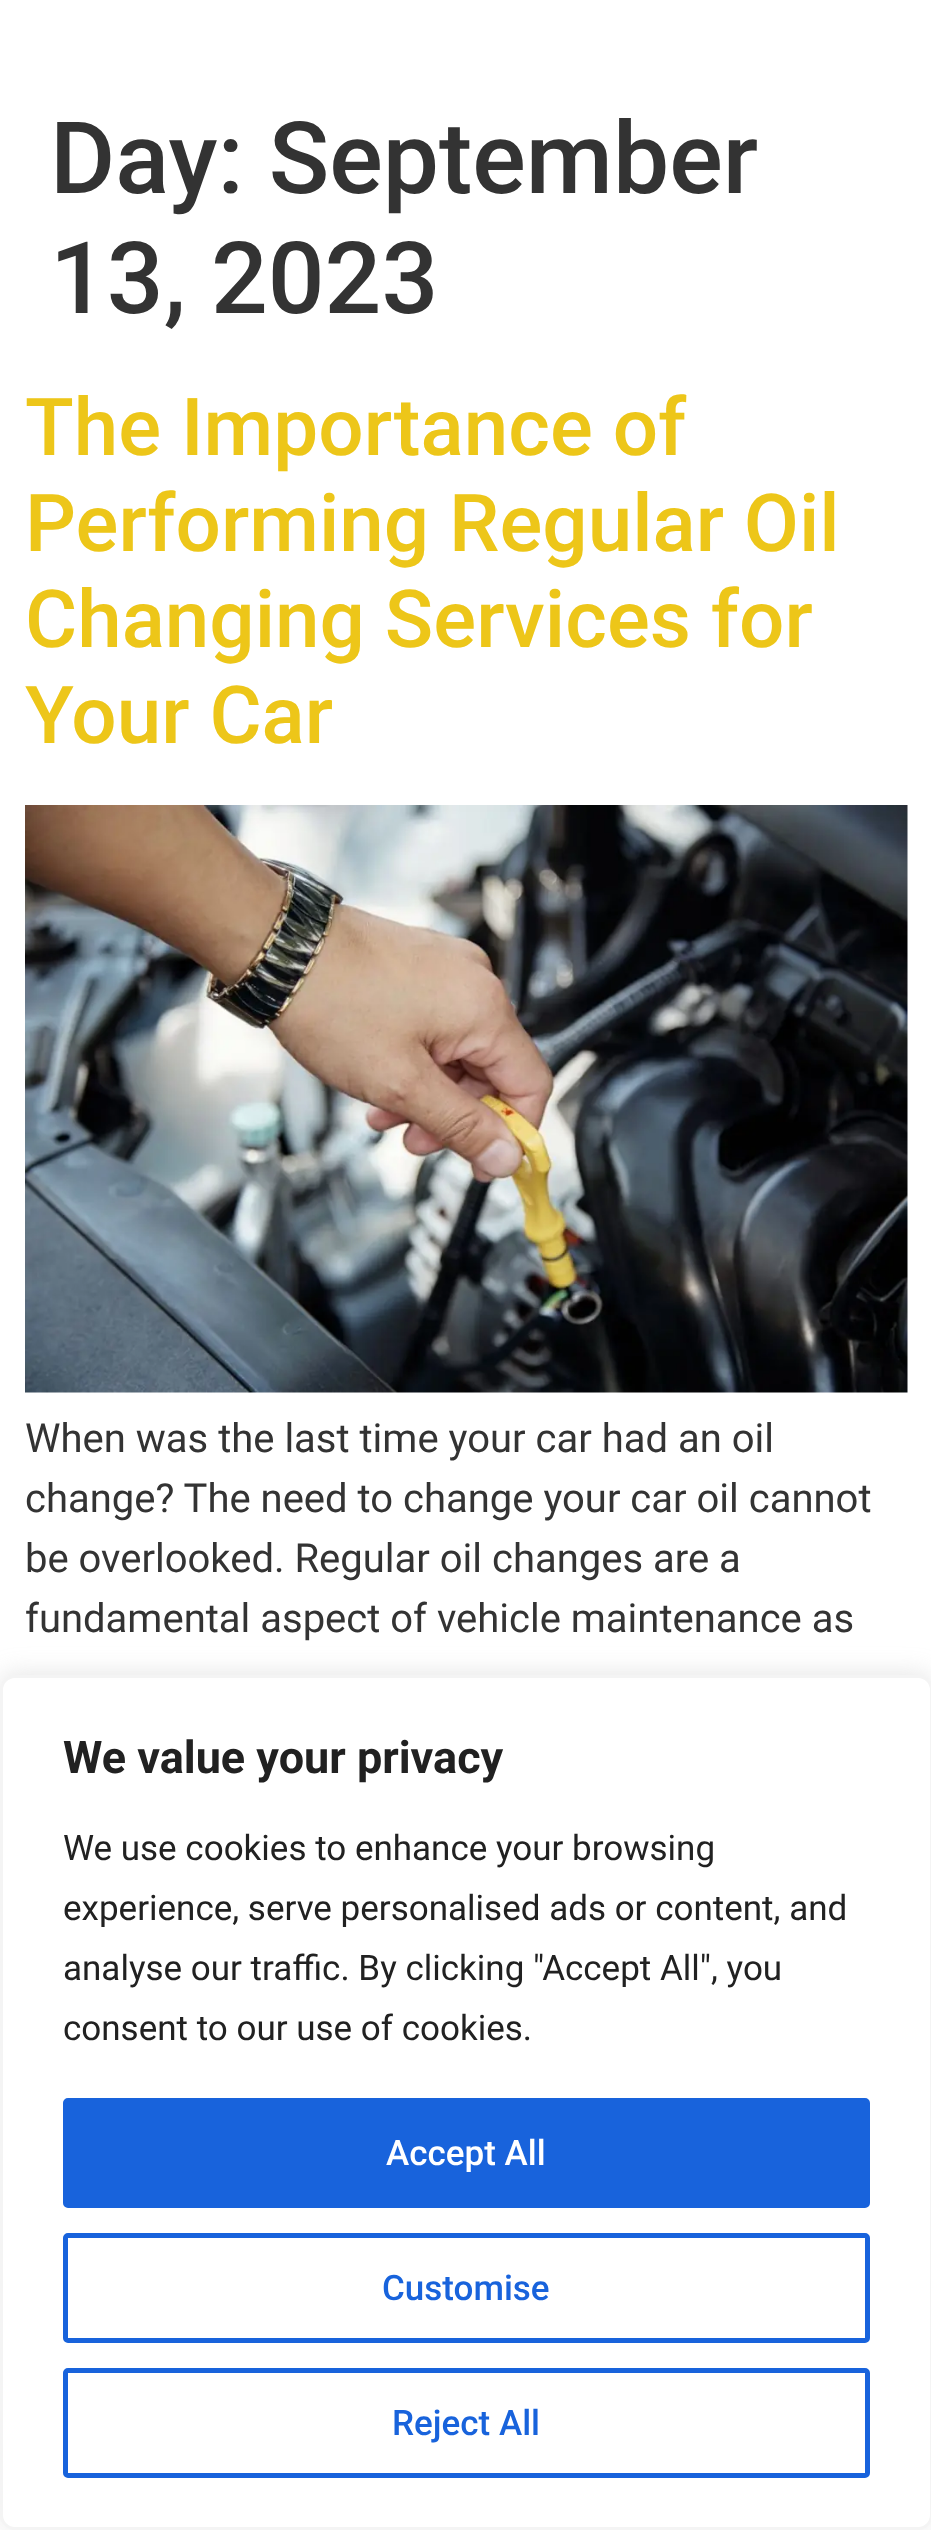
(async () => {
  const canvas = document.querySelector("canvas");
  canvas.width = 931;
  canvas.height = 2530;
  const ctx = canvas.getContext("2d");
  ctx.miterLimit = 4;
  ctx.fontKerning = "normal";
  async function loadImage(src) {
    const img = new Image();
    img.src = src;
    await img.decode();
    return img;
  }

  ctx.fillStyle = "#ffffff";
  ctx.fillRect(0, 0, 931, 2530);
  ctx.drawImage(await loadImage("img/1.png"), 25, 805, 883, 588);
  ctx.fillStyle = "rgba(172, 171, 171, 0.3)";
  ctx.filter = "blur(12.5px)";
  ctx.beginPath();
  ctx.roundRect(0, 1673, 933, 855, 15);
  ctx.fill();
  ctx.filter = "none";
  ctx.fillStyle = "#ffffff";
  ctx.beginPath();
  ctx.roundRect(1.5, 1676.5, 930, 852, 13.5);
  ctx.fill();
  ctx.strokeStyle = "#f4f4f4";
  ctx.lineWidth = 3;
  ctx.stroke();
  ctx.fillStyle = "#1863dc";
  ctx.beginPath();
  ctx.roundRect(65.5, 2100.5, 802, 105, 2.5);
  ctx.fill();
  ctx.strokeStyle = "#1863dc";
  ctx.lineWidth = 5;
  ctx.stroke();
  ctx.beginPath();
  ctx.roundRect(65.5, 2235.5, 802, 105, 2.5);
  ctx.stroke();
  ctx.beginPath();
  ctx.roundRect(65.5, 2370.5, 802, 105, 2.5);
  ctx.stroke();
  ctx.font = "500 100px Roboto";
  ctx.fillStyle = "#333333";
  ctx.fillText("Day: September", 50, 193);
  ctx.fillText("13, 2023", 50, 313);
  ctx.font = "500 80px Roboto";
  ctx.fillStyle = "#edc619";
  for (const [text, x, y] of [
    ["The Importance of", 25, 455],
    ["Performing Regular Oil", 25, 551],
    ["Changing Services for", 25, 647],
    ["Your Car", 25, 743],
  ]) {
    ctx.fillText(text, x, y);
  }
  ctx.font = "40px Roboto";
  ctx.fillStyle = "#333333";
  for (const [text, x, y] of [
    ["When was the last time your car had an oil", 25, 1452],
    ["change? The need to change your car oil cannot", 25, 1512],
    ["be overlooked. Regular oil changes are a", 25, 1572],
    ["fundamental aspect of vehicle maintenance as", 25, 1632],
  ]) {
    ctx.fillText(text, x, y);
  }
  ctx.font = "bold 45px Roboto";
  ctx.fillStyle = "#212121";
  ctx.fillText("We value your privacy", 63, 1773);
  ctx.font = "35px Roboto";
  for (const [text, x, y] of [
    ["We use cookies to enhance your browsing", 63, 1860],
    ["experience, serve personalised ads or content, and", 63, 1920],
    ["analyse our traffic. By clicking \"Accept All\", you", 63, 1980],
    ["consent to our use of cookies.", 63, 2040],
  ]) {
    ctx.fillText(text, x, y);
  }
  ctx.font = "500 35px Roboto";
  ctx.fillStyle = "#ffffff";
  ctx.fillText("Accept All", 386, 2165);
  ctx.fillStyle = "#1863dc";
  ctx.fillText("Customise", 382, 2300);
  ctx.fillText("Reject All", 392, 2435);
})();
